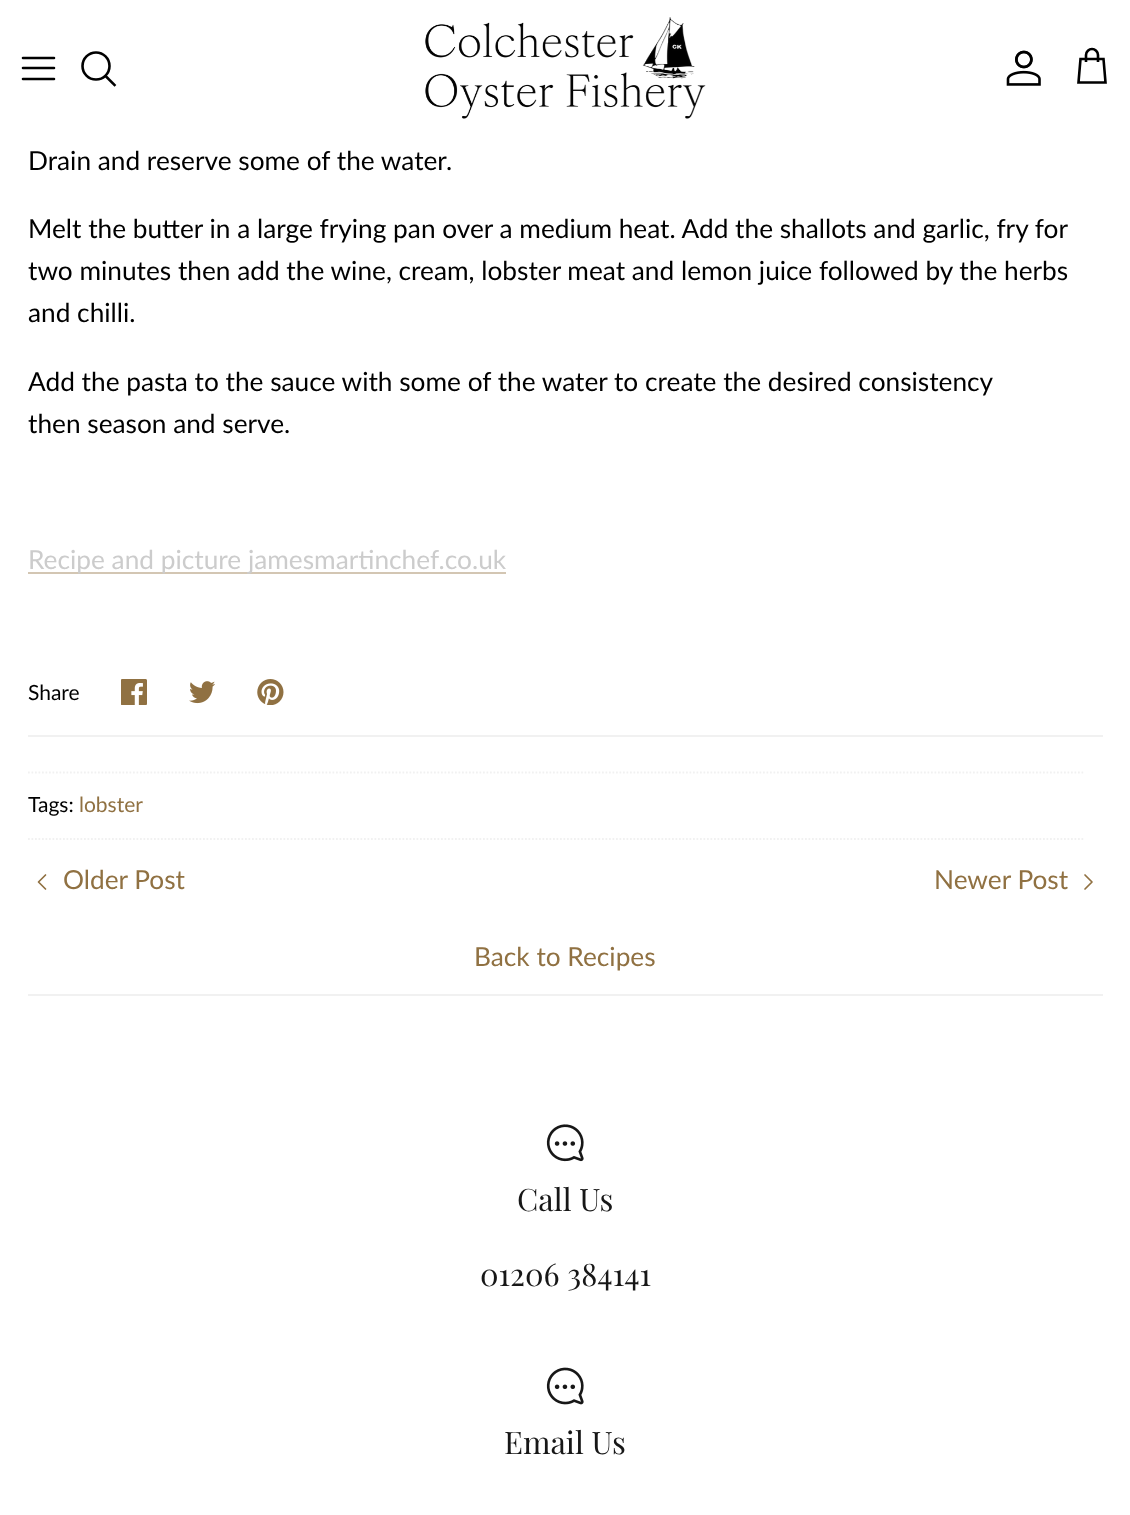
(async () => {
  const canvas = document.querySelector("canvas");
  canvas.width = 1130;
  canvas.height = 1515;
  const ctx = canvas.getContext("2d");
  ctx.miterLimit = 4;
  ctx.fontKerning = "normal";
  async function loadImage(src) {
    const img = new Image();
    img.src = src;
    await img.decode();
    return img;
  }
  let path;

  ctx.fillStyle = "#ffffff";
  ctx.fillRect(0, 0, 1130, 1515);
  path = new Path2D("M23 68H54M23 58H54M23 79H54");
  ctx.strokeStyle = "#000000";
  ctx.lineWidth = 2.6;
  ctx.lineCap = "round";
  ctx.lineJoin = "round";
  ctx.stroke(path);
  ctx.beginPath();
  ctx.arc(96, 66, 13.5, 0, Math.PI * 2);
  ctx.stroke();
  path = new Path2D("M106.5 77L114.5 85");
  ctx.lineCap = "square";
  ctx.lineJoin = "miter";
  ctx.stroke(path);
  ctx.drawImage(await loadImage("img/1.png"), 425, 17, 281, 102);
  ctx.drawImage(await loadImage("img/2.png"), 1006, 50, 35, 36);
  path = new Path2D("M1098 62V55C1098 51.5 1095 49 1092 49C1089 49 1086 51.5 1086 55V62M1080.5 59H1103.5L1105.5 82.5H1078.5Z");
  ctx.lineCap = "butt";
  ctx.stroke(path);
  ctx.fillStyle = "#d3c6b3";
  ctx.fillRect(28, 572, 478, 2);
  ctx.drawImage(await loadImage("img/3.png"), 121, 679, 26, 26);
  ctx.drawImage(await loadImage("img/4.png"), 189, 681, 26, 23);
  ctx.drawImage(await loadImage("img/5.png"), 257, 679, 27, 26);
  ctx.fillStyle = "#f1f1f1";
  ctx.fillRect(28, 735, 1075, 2);
  path = new Path2D("M28 772.5H1085");
  ctx.strokeStyle = "#f1f1f1";
  ctx.lineWidth = 1.8;
  ctx.setLineDash([1.75, 1.75]);
  ctx.stroke(path);
  path = new Path2D("M28 839H1085");
  ctx.stroke(path);
  ctx.fillRect(28, 994, 1075, 2);
  path = new Path2D("M45.5 889L38.5 882L45.5 875");
  ctx.strokeStyle = "#907142";
  ctx.lineWidth = 1.7;
  ctx.lineCap = "round";
  ctx.lineJoin = "round";
  ctx.setLineDash([]);
  ctx.stroke(path);
  path = new Path2D("M1085 889L1092 882L1085 875");
  ctx.stroke(path);
  ctx.drawImage(await loadImage("img/6.png"), 546, 1124, 38, 38);
  ctx.drawImage(await loadImage("img/7.png"), 546, 1367, 38, 38);
  ctx.font = "26.25px Lato";
  ctx.fillStyle = "#000000";
  for (const [text, x, y] of [
    ["Drain and reserve some of the water.", 28, 170],
    ["Melt the butter in a large frying pan over a medium heat. Add the shallots and garlic, fry for", 28, 238],
    ["two minutes then add the wine, cream, lobster meat and lemon juice followed by the herbs", 28, 280],
    ["and chilli.", 28, 322],
    ["Add the pasta to the sauce with some of the water to create the desired consistency", 28, 391],
    ["then season and serve.", 28, 433],
  ]) {
    ctx.fillText(text, x, y);
  }
  ctx.fillStyle = "#cccccc";
  ctx.fillText("Recipe and picture jamesmartinchef.co.uk", 28, 569);
  ctx.font = "21px Lato";
  ctx.fillStyle = "#000000";
  ctx.fillText("Share", 28, 700);
  ctx.fillText("Tags:", 28, 812);
  ctx.fillStyle = "#907142";
  ctx.fillText("lobster", 79, 812);
  ctx.font = "26.25px Lato";
  for (const [text, x, y] of [
    ["Older Post", 63, 889],
    ["Newer Post", 934, 889],
    ["Back to Recipes", 474, 966],
  ]) {
    ctx.fillText(text, x, y);
  }
  ctx.font = "31px Playfair Display";
  ctx.fillStyle = "#171717";
  for (const [text, x, y] of [
    ["Call Us", 517, 1211],
    ["01206 384141", 480, 1286],
    ["Email Us", 504, 1454],
  ]) {
    ctx.fillText(text, x, y);
  }
})();
